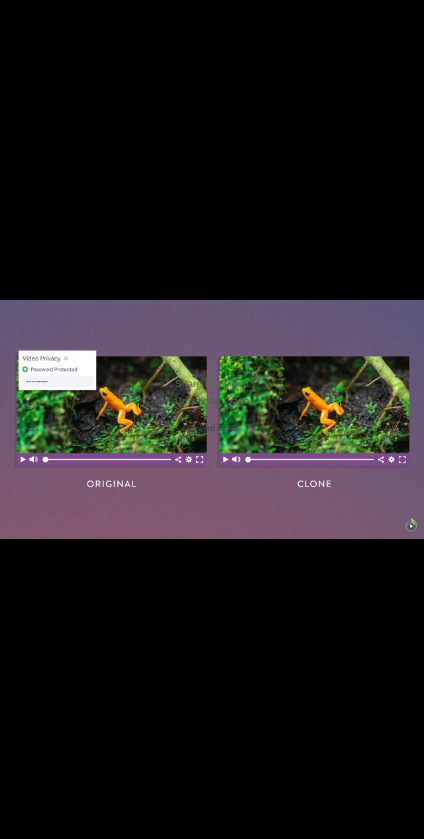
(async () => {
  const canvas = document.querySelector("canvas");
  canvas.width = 424;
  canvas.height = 839;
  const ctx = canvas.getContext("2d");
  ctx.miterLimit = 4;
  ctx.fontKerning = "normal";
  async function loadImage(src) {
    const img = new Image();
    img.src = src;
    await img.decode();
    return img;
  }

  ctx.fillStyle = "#000000";
  ctx.fillRect(0, 0, 424, 839);
  ctx.drawImage(await loadImage("img/1.png"), 0, 300, 424, 239);
  ctx.letterSpacing = "0.25px";
  ctx.font = "9.75px Liberation Sans";
  ctx.fillStyle = "#587745";
  ctx.fillText("Share this video", 175, 387);
  ctx.font = "8.5px Liberation Sans";
  ctx.fillStyle = "#3b4f3f";
  ctx.fillText("Embed Code", 187, 431);
  ctx.font = "9.75px Liberation Sans";
  ctx.fillStyle = "#4d633f";
  ctx.fillText("Download Video", 175, 404);
  ctx.letterSpacing = "1px";
  ctx.font = "7px Liberation Sans";
  ctx.fillStyle = "#837422";
  ctx.fillText("SD", 121, 432);
})();
